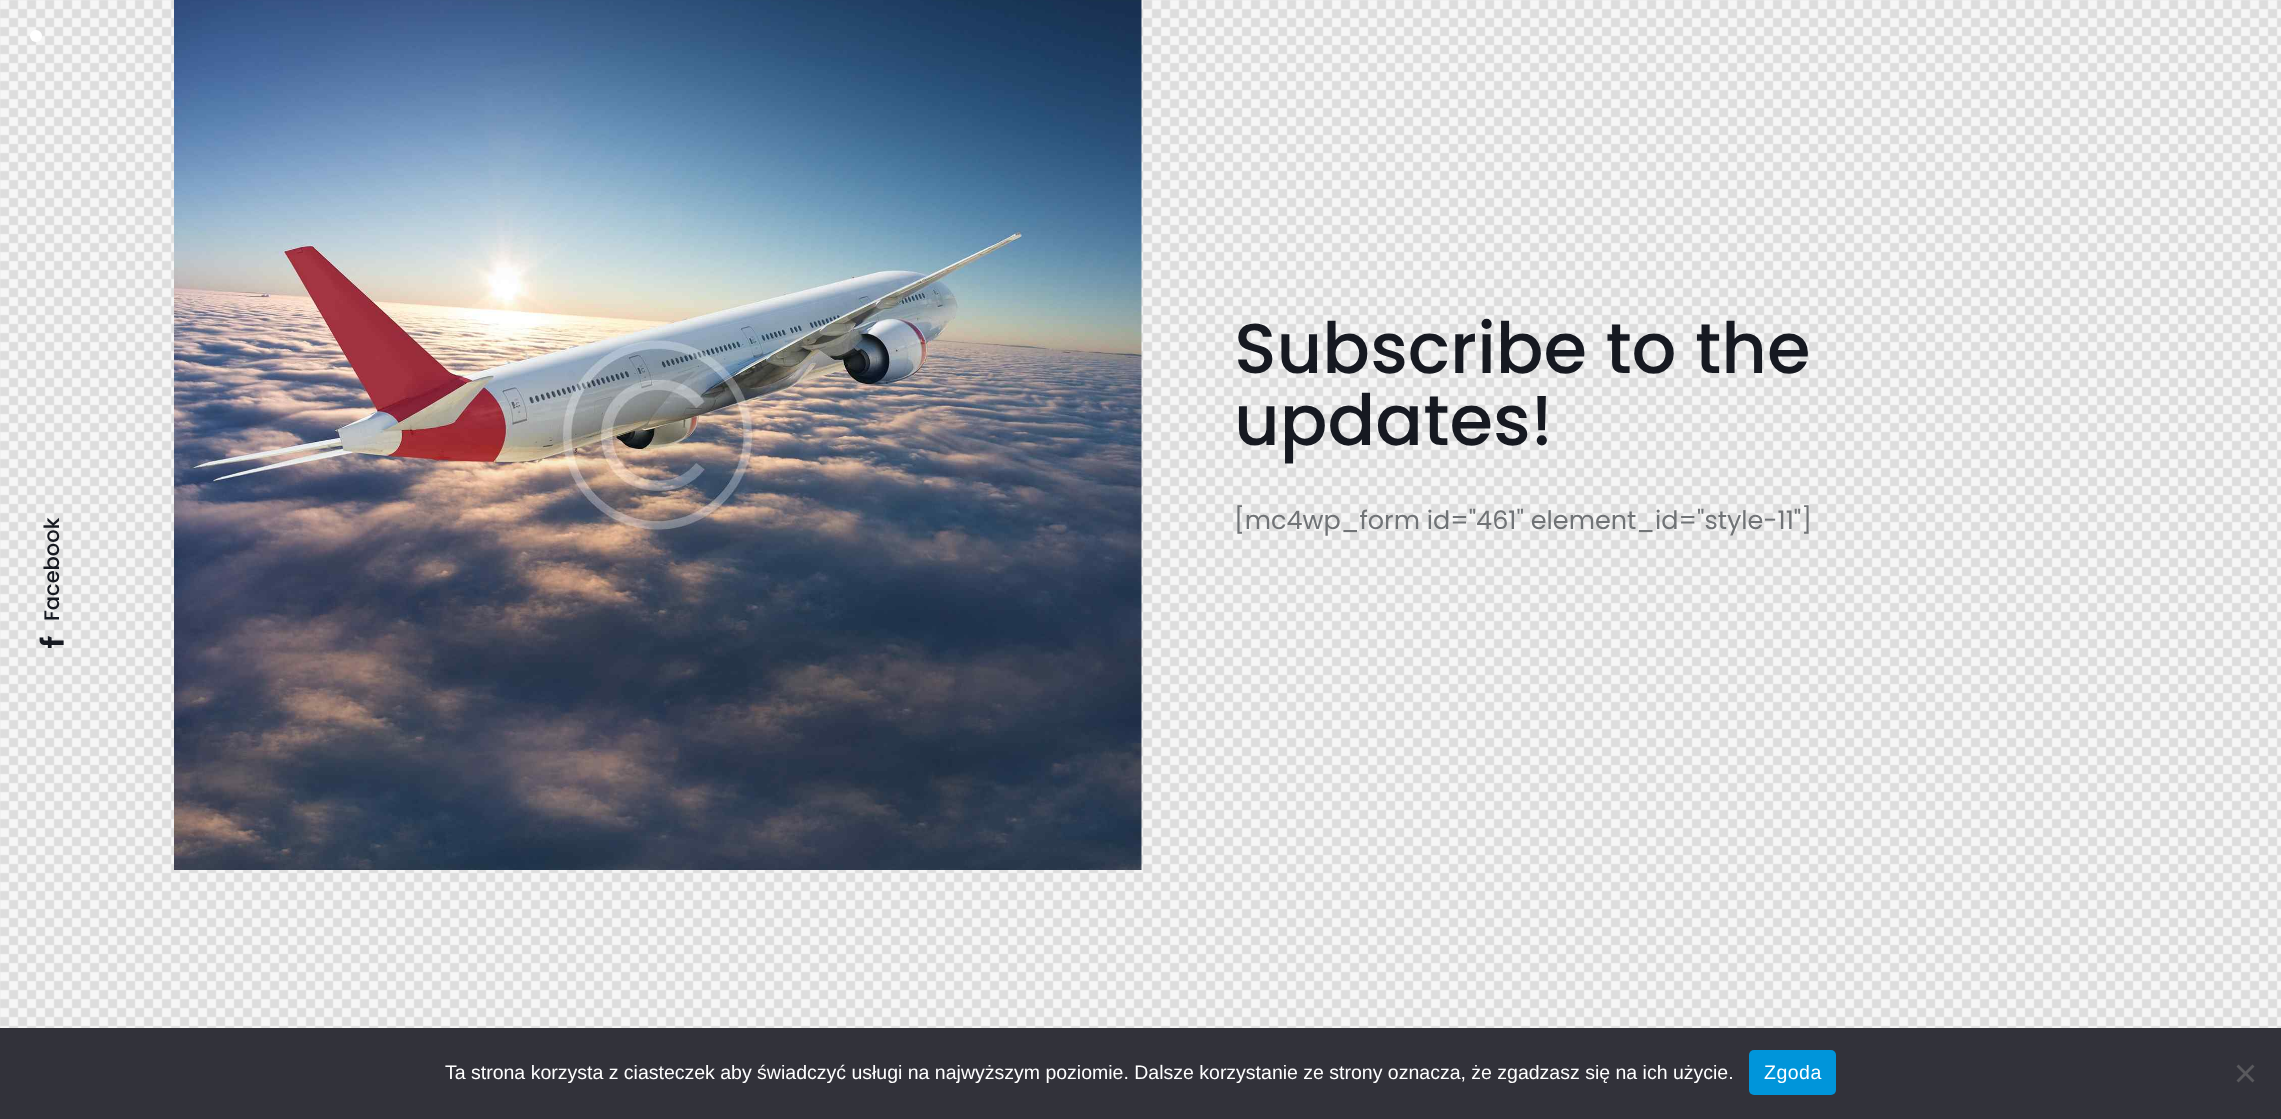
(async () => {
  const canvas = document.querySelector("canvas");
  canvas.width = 2281;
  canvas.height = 1119;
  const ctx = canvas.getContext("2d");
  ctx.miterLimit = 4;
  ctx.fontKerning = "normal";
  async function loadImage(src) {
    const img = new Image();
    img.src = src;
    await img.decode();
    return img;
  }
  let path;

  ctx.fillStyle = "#ffffff";
  ctx.fillRect(0, 0, 2281, 1119);
  ctx.drawImage(await loadImage("img/1.png"), 0, 0, 2281, 1028);
  ctx.beginPath();
  ctx.arc(36, 36, 6, 0, Math.PI * 2);
  ctx.fill();
  ctx.drawImage(await loadImage("img/2.png"), 174, 0, 968, 870);
  ctx.drawImage(await loadImage("img/3.png"), 39, 636, 25, 12);
  ctx.fillStyle = "#32323a";
  ctx.fillRect(0, 1028, 2281, 91);
  ctx.fillStyle = "#0095da";
  ctx.beginPath();
  ctx.roundRect(1749, 1050, 87, 45, 5);
  ctx.fill();
  ctx.fillStyle = "#59595d";
  path = new Path2D("M2252.5 1064.5L2254.5 1066.5L2238.5 1082.5L2236.5 1080.5Z");
  ctx.fill(path);
  path = new Path2D("M2236.5 1066.5L2238.5 1064.5L2254.5 1080.5L2252.5 1082.5Z");
  ctx.fill(path);
  ctx.font = "500 70.5px Poppins";
  ctx.fillStyle = "#161921";
  ctx.fillText("Subscribe to the", 1234, 373);
  ctx.fillText("updates!", 1234, 445);
  ctx.font = "25.5px Poppins";
  ctx.fillStyle = "#707376";
  ctx.fillText("[mc4wp_form id=\"461\" element_id=\"style-11\"]", 1234, 529);
  ctx.font = "500 21px Poppins";
  ctx.fillStyle = "#161921";
  ctx.save();
  ctx.translate(59, 621);
  ctx.rotate(-90 * Math.PI / 180);
  ctx.fillText("Facebook", 0, 0);
  ctx.restore();
  ctx.font = "19.5px Liberation Sans";
  ctx.fillStyle = "#ffffff";
  ctx.fillText("Ta strona korzysta z ciasteczek aby świadczyć usługi na najwyższym poziomie. Dalsze korzystanie ze strony oznacza, że zgadzasz się na ich użycie.", 445, 1079);
  ctx.letterSpacing = "0.5px";
  ctx.fillText("Zgoda", 1764, 1079);
})();
